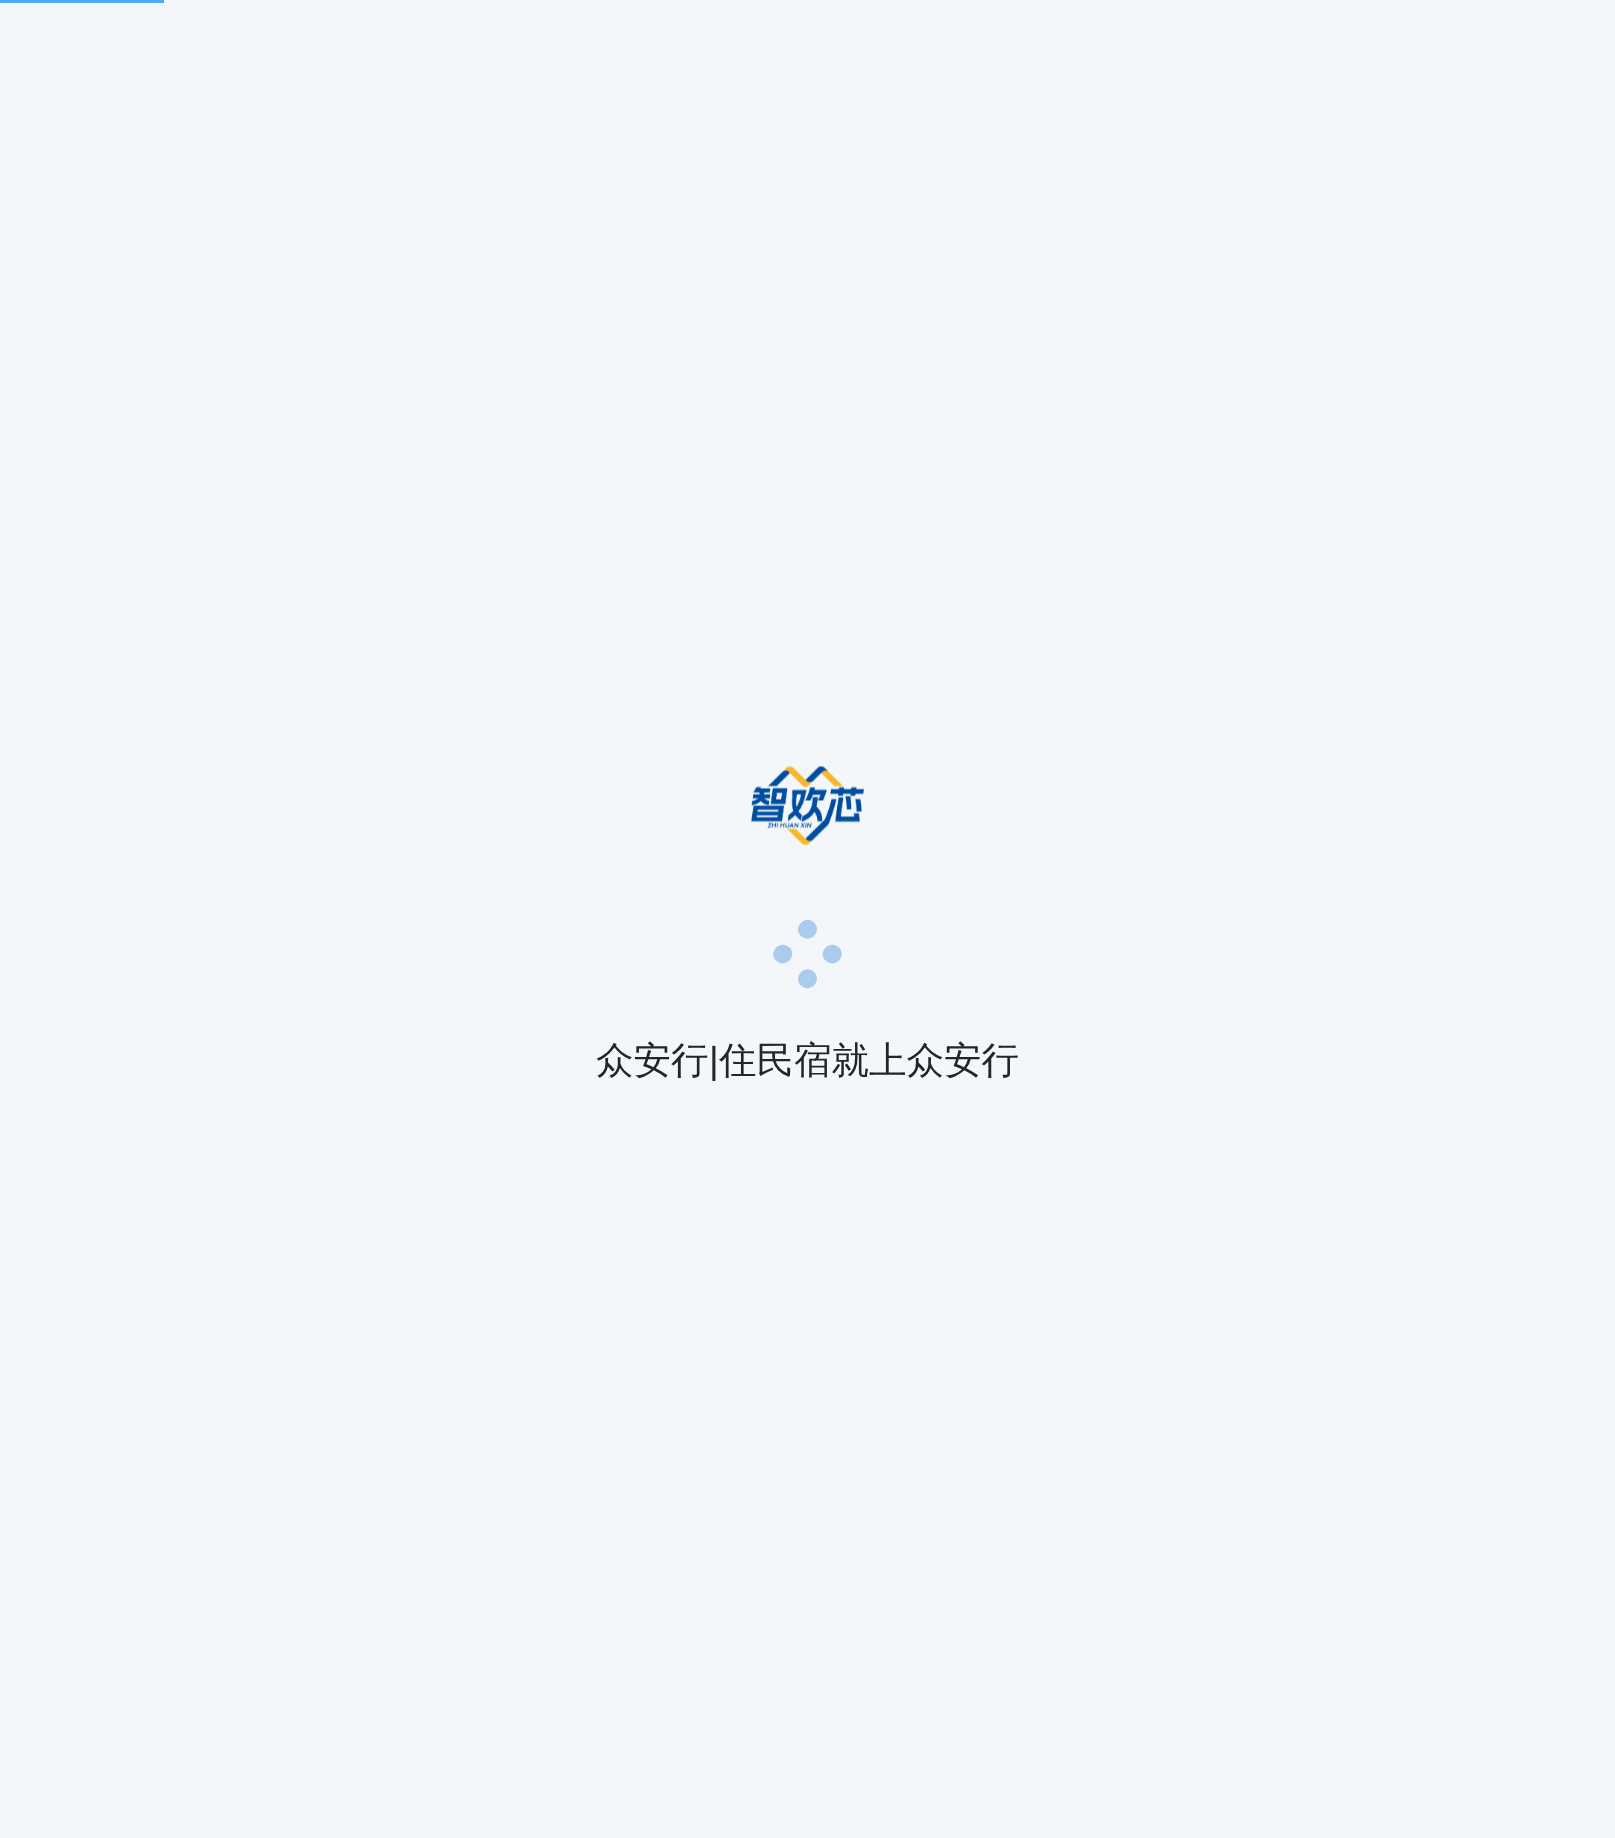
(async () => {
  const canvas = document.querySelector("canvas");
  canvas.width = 1615;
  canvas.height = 1838;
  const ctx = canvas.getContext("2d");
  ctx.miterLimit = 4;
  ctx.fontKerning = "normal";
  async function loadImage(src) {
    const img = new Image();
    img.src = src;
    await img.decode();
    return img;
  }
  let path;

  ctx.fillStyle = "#f4f7f9";
  ctx.fillRect(0, 0, 1615, 1838);
  ctx.fillStyle = "#4faafe";
  ctx.fillRect(0, 0, 164, 3);
  ctx.drawImage(await loadImage("img/1.png"), 751, 765, 113, 81);
  ctx.fillStyle = "#abcbec";
  path = new Path2D("M814 922.5C823 931.5 809.5 944.5 801 936C792 927.5 805.5 914 814 922.5ZM839 947.5C847.5 956 834.5 969.5 825.5 960.5C817 952 830 939 839 947.5Z");
  ctx.fill(path);
  path = new Path2D("M814 972C823 981 809.5 994 801 985.5C792 977 805.5 963.5 814 972ZM789.5 947.5C798 956 785 969.5 776 960.5C767.5 952 780.5 939 789.5 947.5Z");
  ctx.fill(path);
  ctx.font = "500 37.5px WenQuanYi Zen Hei";
  ctx.fillStyle = "#252525";
  ctx.fillText("众安行", 596, 1073);
  ctx.font = "37.5px Liberation Sans";
  ctx.fillText("|", 709, 1073);
  ctx.font = "500 37.5px WenQuanYi Zen Hei";
  ctx.fillText("住民宿就上众安行", 719, 1073);
})();
